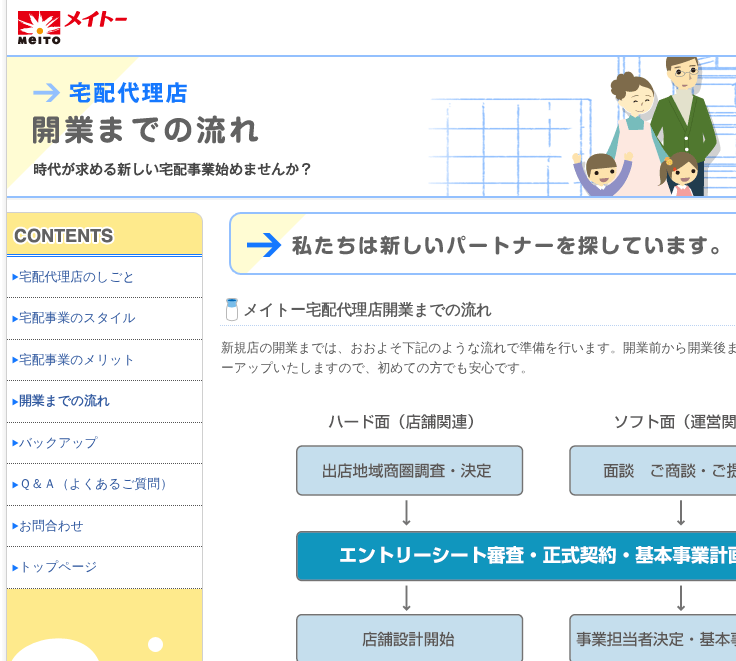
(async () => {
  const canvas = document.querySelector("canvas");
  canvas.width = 736;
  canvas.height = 661;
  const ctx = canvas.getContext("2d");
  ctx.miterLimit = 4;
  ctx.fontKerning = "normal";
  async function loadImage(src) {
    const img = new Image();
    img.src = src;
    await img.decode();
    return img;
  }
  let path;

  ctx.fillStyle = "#ffffff";
  ctx.fillRect(0, 0, 736, 661);
  ctx.drawImage(await loadImage("img/1.png"), 2, 0, 5, 661);
  ctx.drawImage(await loadImage("img/2.png"), 18, 11, 109, 34);
  ctx.drawImage(await loadImage("img/3.png"), 7, 55, 729, 145);
  ctx.drawImage(await loadImage("img/4.png"), 7, 257, 196, 404);
  ctx.drawImage(await loadImage("img/5.png"), 7, 212, 196, 45);
  ctx.fillRect(7, 257, 195, 332);
  ctx.drawImage(await loadImage("img/6.png"), 12, 273, 7, 8);
  path = new Path2D("M7 297.5H202");
  ctx.strokeStyle = "#555555";
  ctx.setLineDash([1, 1]);
  ctx.stroke(path);
  ctx.drawImage(await loadImage("img/6.png"), 12, 315, 7, 8);
  path = new Path2D("M7 339.5H202");
  ctx.stroke(path);
  ctx.drawImage(await loadImage("img/6.png"), 12, 356, 7, 8);
  path = new Path2D("M7 380.5H202");
  ctx.stroke(path);
  ctx.drawImage(await loadImage("img/6.png"), 12, 398, 7, 8);
  path = new Path2D("M7 422.5H202");
  ctx.stroke(path);
  ctx.drawImage(await loadImage("img/6.png"), 12, 439, 7, 8);
  path = new Path2D("M7 463.5H202");
  ctx.stroke(path);
  ctx.drawImage(await loadImage("img/6.png"), 12, 481, 7, 8);
  path = new Path2D("M7 505.5H202");
  ctx.stroke(path);
  ctx.drawImage(await loadImage("img/6.png"), 12, 522, 7, 8);
  path = new Path2D("M7 546.5H202");
  ctx.stroke(path);
  ctx.drawImage(await loadImage("img/6.png"), 12, 564, 7, 8);
  path = new Path2D("M7 588.5H202");
  ctx.stroke(path);
  ctx.drawImage(await loadImage("img/7.png"), 229, 212, 507, 63);
  ctx.drawImage(await loadImage("img/8.png"), 220, 298, 515, 28);
  ctx.drawImage(await loadImage("img/9.png"), 296, 414, 440, 247);
  ctx.font = "500 12.8px WenQuanYi Zen Hei";
  ctx.fillStyle = "#325aa0";
  for (const [text, x, y] of [
    ["宅配代理店のしごと", 19, 281],
    ["宅配事業のスタイル", 19, 322],
    ["宅配事業のメリット", 19, 364],
  ]) {
    ctx.fillText(text, x, y);
  }
  ctx.font = "bold 12.8px WenQuanYi Zen Hei";
  ctx.fillText("開業までの流れ", 19, 405);
  ctx.font = "500 12.8px WenQuanYi Zen Hei";
  for (const [text, x, y] of [
    ["バックアップ", 19, 447],
    ["Ｑ＆Ａ（よくあるご質問）", 19, 488],
    ["お問合わせ", 19, 530],
    ["トップページ", 19, 571],
  ]) {
    ctx.fillText(text, x, y);
  }
  ctx.font = "bold 15.4px WenQuanYi Zen Hei";
  ctx.fillStyle = "#5a5a5a";
  ctx.fillText("メイトー宅配代理店開業までの流れ", 243, 315);
  ctx.font = "500 12.8px WenQuanYi Zen Hei";
  ctx.fillText("新規店の開業までは、おおよそ下記のような流れで準備を行います。開業前から開業後ま", 221, 352);
  ctx.fillText("ーアップいたしますので、初めての方でも安心です。", 221, 372);
})();
